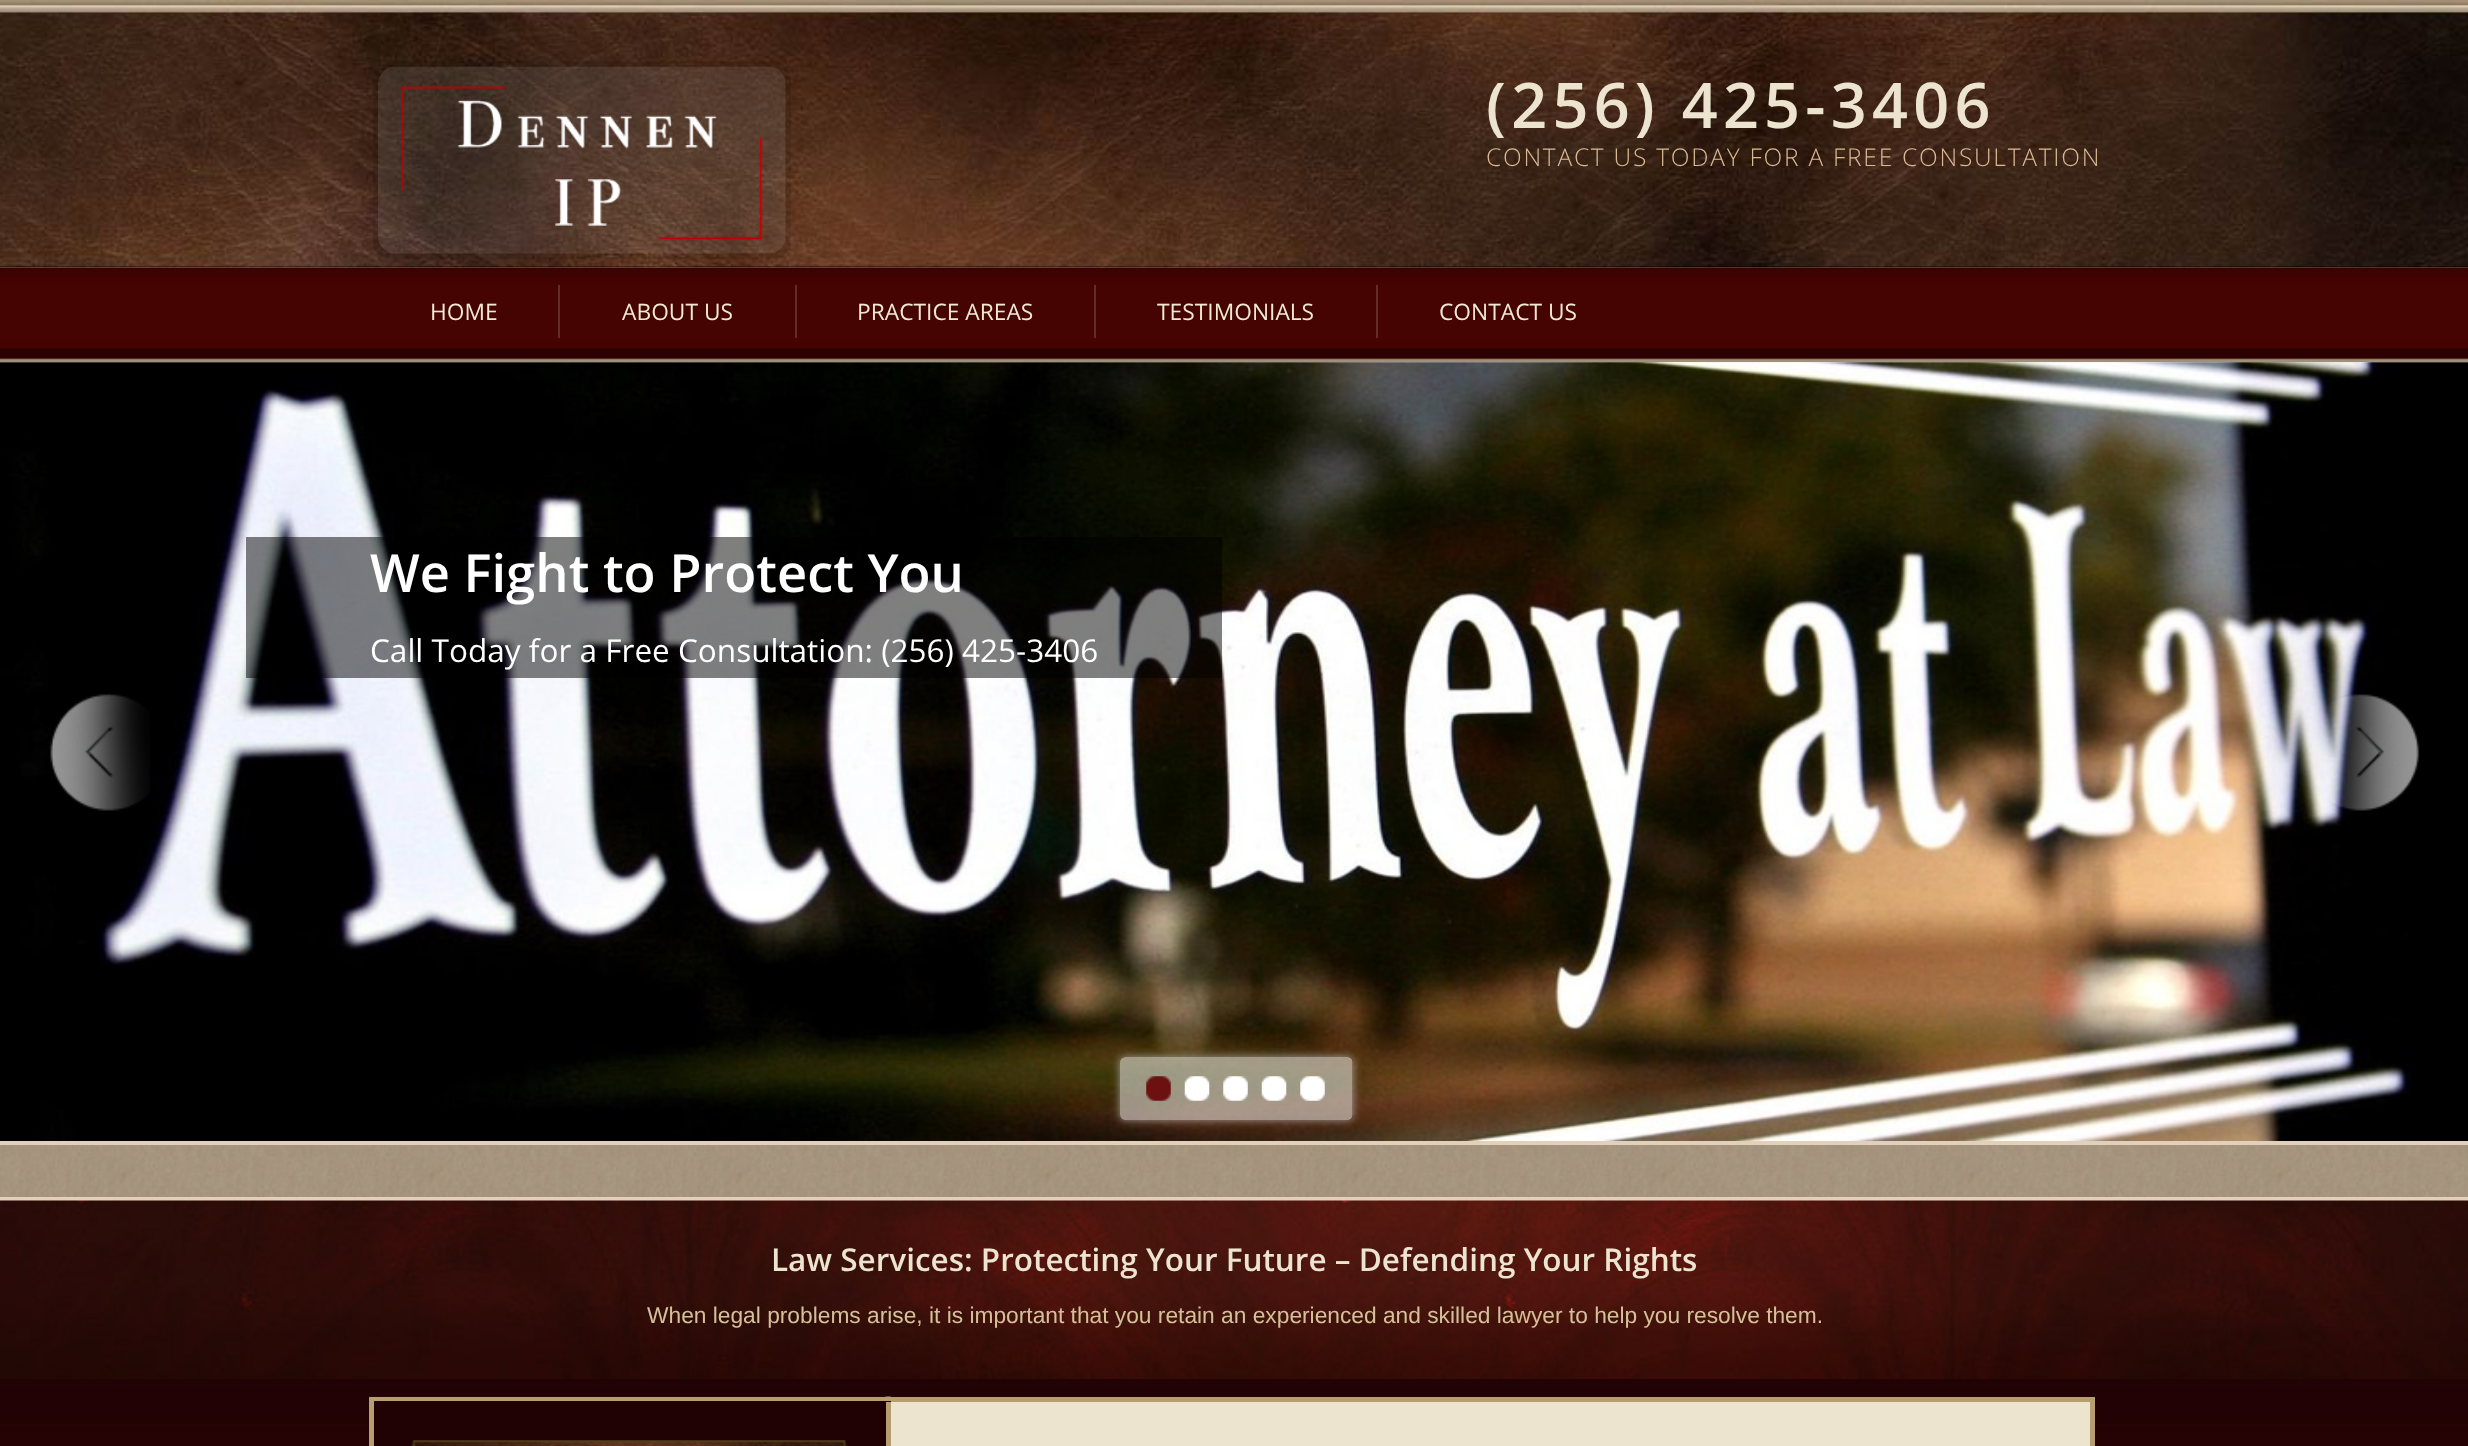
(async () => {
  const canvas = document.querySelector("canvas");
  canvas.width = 2468;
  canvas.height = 1446;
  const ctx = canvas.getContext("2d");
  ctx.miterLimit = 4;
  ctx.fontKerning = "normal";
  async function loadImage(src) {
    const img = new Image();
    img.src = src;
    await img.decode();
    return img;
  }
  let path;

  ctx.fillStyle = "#ffffff";
  ctx.fillRect(0, 0, 2468, 1446);
  ctx.drawImage(await loadImage("img/1.png"), 0, 0, 2468, 268);
  ctx.drawImage(await loadImage("img/2.png"), 373, 61, 418, 198);
  ctx.drawImage(await loadImage("img/3.png"), 378, 66, 408, 188);
  ctx.drawImage(await loadImage("img/4.png"), 401, 85, 362, 156);
  ctx.drawImage(await loadImage("img/5.png"), 0, 267, 2468, 96);
  for (const [x, y, w, h, color] of [
    [558, 285, 2, 53, "#612d26"],
    [795, 285, 2, 53, "#612d26"],
    [1094, 285, 2, 53, "#612d26"],
    [1376, 285, 2, 53, "#612d26"],
  ]) {
    ctx.fillStyle = color;
    ctx.fillRect(x, y, w, h);
  }
  ctx.drawImage(await loadImage("img/6.png"), 0, 362, 2468, 779);
  ctx.fillStyle = "rgba(0, 0, 0, 0.5)";
  ctx.fillRect(246, 537, 976, 141);
  ctx.drawImage(await loadImage("img/7.png"), 49, 693, 101, 118);
  ctx.drawImage(await loadImage("img/8.png"), 2326, 694, 94, 117);
  ctx.save();
  path = new Path2D("M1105 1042H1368V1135H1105ZM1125 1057H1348C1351 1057 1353 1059 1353 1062V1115C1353 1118 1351 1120 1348 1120H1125C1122 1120 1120 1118 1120 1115V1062C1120 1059 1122 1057 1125 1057Z");
  ctx.clip(path, "evenodd");
  ctx.fillStyle = "#a19c98";
  ctx.filter = "blur(4.5px)";
  ctx.beginPath();
  ctx.roundRect(1120, 1057, 233, 63, 5);
  ctx.fill();
  ctx.filter = "none";
  ctx.restore();
  ctx.drawImage(await loadImage("img/9.png"), 1120, 1057, 233, 63);
  ctx.drawImage(await loadImage("img/10.png"), 1146, 1076, 25, 25);
  ctx.drawImage(await loadImage("img/11.png"), 1184, 1076, 26, 25);
  ctx.drawImage(await loadImage("img/12.png"), 1223, 1076, 25, 25);
  ctx.drawImage(await loadImage("img/13.png"), 1261, 1076, 26, 25);
  ctx.drawImage(await loadImage("img/14.png"), 1300, 1076, 25, 25);
  ctx.drawImage(await loadImage("img/15.png"), 0, 1145, 2468, 52);
  ctx.fillStyle = "#e2d0ba";
  ctx.fillRect(0, 1141, 2468, 4);
  ctx.fillRect(0, 1197, 2468, 4);
  ctx.drawImage(await loadImage("img/16.png"), 0, 1379, 2468, 67);
  ctx.drawImage(await loadImage("img/17.png"), 0, 1200, 2468, 179);
  ctx.fillStyle = "#ece4cf";
  ctx.fillRect(891, 1402, 1199, 44);
  ctx.drawImage(await loadImage("img/18.png"), 374, 1396, 517, 1);
  ctx.strokeStyle = "#b69e70";
  ctx.lineWidth = 5;
  ctx.strokeRect(371.5, 1399.5, 1721, 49);
  ctx.fillStyle = "#200204";
  ctx.fillRect(374, 1401, 517, 45);
  ctx.fillStyle = "#b69e70";
  ctx.fillRect(886, 1402, 5, 44);
  ctx.drawImage(await loadImage("img/19.png"), 410, 1440, 438, 6);
  ctx.letterSpacing = "5.25px";
  ctx.font = "600 63px Open Sans";
  ctx.fillStyle = "#ece4cf";
  ctx.fillText("(256) 425-3406", 1486, 128);
  ctx.letterSpacing = "1.75px";
  ctx.font = "300 24.5px Open Sans";
  ctx.fillStyle = "#dab995";
  ctx.fillText("CONTACT US TODAY FOR A FREE CONSULTATION", 1486, 166);
  ctx.letterSpacing = "0px";
  ctx.font = "22.75px Open Sans";
  ctx.fillStyle = "#f0ead0";
  for (const [text, x, y] of [
    ["HOME", 430, 320],
    ["ABOUT US", 622, 320],
    ["PRACTICE AREAS", 857, 320],
    ["TESTIMONIALS", 1157, 320],
    ["CONTACT US", 1439, 320],
  ]) {
    ctx.fillText(text, x, y);
  }
  ctx.font = "600 52.5px Open Sans";
  ctx.fillStyle = "#ffffff";
  ctx.fillText("We Fight to Protect You", 370, 592);
  ctx.font = "31.5px Open Sans";
  ctx.fillText("Call Today for a Free Consultation: (256) 425-3406", 370, 662);
  ctx.font = "600 31.5px Open Sans";
  ctx.fillStyle = "#ece4cf";
  ctx.fillText("Law Services: Protecting Your Future – Defending Your Rights", 771, 1271);
  ctx.font = "22.75px Liberation Sans";
  ctx.fillStyle = "#d4c099";
  ctx.fillText("When legal problems arise, it is important that you retain an experienced and skilled lawyer to help you resolve them.", 647, 1323);
})();
